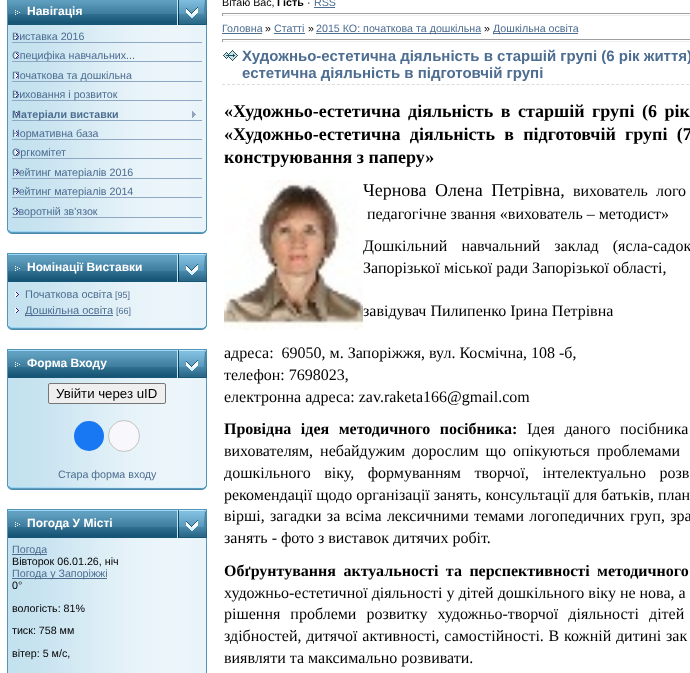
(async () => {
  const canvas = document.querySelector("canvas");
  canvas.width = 690;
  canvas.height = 673;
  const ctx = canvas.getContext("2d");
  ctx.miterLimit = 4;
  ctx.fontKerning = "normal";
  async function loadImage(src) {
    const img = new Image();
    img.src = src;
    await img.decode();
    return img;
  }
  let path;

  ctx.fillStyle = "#ffffff";
  ctx.fillRect(0, 0, 690, 673);
  ctx.drawImage(await loadImage("img/1.png"), 8, 0, 169, 25);
  ctx.fillStyle = "#5694b5";
  ctx.fillRect(7, 0, 1, 25);
  ctx.drawImage(await loadImage("img/2.png"), 15, 10, 5, 5);
  ctx.drawImage(await loadImage("img/3.png"), 177, 0, 30, 25);
  ctx.drawImage(await loadImage("img/4.png"), 7, 25, 200, 204);
  ctx.drawImage(await loadImage("img/5.png"), 15, 34, 4, 5);
  ctx.fillStyle = "#8ea8c4";
  ctx.fillRect(12, 42, 190, 1);
  ctx.drawImage(await loadImage("img/5.png"), 15, 53, 4, 5);
  ctx.fillRect(12, 61, 190, 1);
  ctx.drawImage(await loadImage("img/5.png"), 15, 73, 4, 5);
  ctx.fillRect(12, 81, 190, 1);
  ctx.drawImage(await loadImage("img/5.png"), 15, 92, 4, 5);
  ctx.fillRect(12, 100, 190, 1);
  ctx.drawImage(await loadImage("img/5.png"), 15, 112, 4, 5);
  ctx.fillRect(12, 120, 190, 1);
  ctx.drawImage(await loadImage("img/6.png"), 192, 111, 4, 7);
  ctx.drawImage(await loadImage("img/5.png"), 15, 131, 4, 5);
  ctx.fillRect(12, 139, 190, 1);
  ctx.drawImage(await loadImage("img/5.png"), 15, 150, 4, 5);
  ctx.fillRect(12, 158, 190, 1);
  ctx.drawImage(await loadImage("img/5.png"), 15, 170, 4, 5);
  ctx.fillRect(12, 178, 190, 1);
  ctx.drawImage(await loadImage("img/5.png"), 15, 189, 4, 5);
  ctx.fillRect(12, 197, 190, 1);
  ctx.drawImage(await loadImage("img/5.png"), 15, 209, 4, 5);
  ctx.fillRect(12, 217, 190, 1);
  ctx.drawImage(await loadImage("img/7.png"), 7, 229, 200, 5);
  ctx.drawImage(await loadImage("img/8.png"), 8, 253, 169, 29);
  ctx.fillStyle = "#5694b5";
  ctx.fillRect(7, 253, 1, 29);
  ctx.drawImage(await loadImage("img/9.png"), 15, 266, 5, 5);
  ctx.drawImage(await loadImage("img/10.png"), 177, 253, 30, 1);
  ctx.drawImage(await loadImage("img/11.png"), 177, 254, 30, 28);
  ctx.drawImage(await loadImage("img/12.png"), 7, 282, 200, 43);
  ctx.drawImage(await loadImage("img/5.png"), 15, 292, 4, 5);
  ctx.drawImage(await loadImage("img/5.png"), 15, 308, 4, 5);
  ctx.fillStyle = "#4d6d91";
  ctx.fillRect(25, 315, 88, 1);
  ctx.drawImage(await loadImage("img/7.png"), 7, 325, 200, 5);
  ctx.drawImage(await loadImage("img/8.png"), 8, 349, 169, 29);
  ctx.fillStyle = "#5694b5";
  ctx.fillRect(7, 349, 1, 29);
  ctx.drawImage(await loadImage("img/9.png"), 15, 362, 5, 5);
  ctx.drawImage(await loadImage("img/10.png"), 177, 349, 30, 1);
  ctx.drawImage(await loadImage("img/11.png"), 177, 350, 30, 28);
  ctx.drawImage(await loadImage("img/13.png"), 7, 378, 200, 107);
  ctx.fillStyle = "#efefef";
  ctx.beginPath();
  ctx.roundRect(48.5, 383.5, 117, 20, 1.5);
  ctx.fill();
  ctx.strokeStyle = "#767676";
  ctx.stroke();
  ctx.fillStyle = "#1877f2";
  ctx.beginPath();
  ctx.arc(89, 436, 15, 0, Math.PI * 2);
  ctx.fill();
  ctx.fillStyle = "#f8f8fc";
  ctx.beginPath();
  ctx.arc(124, 436, 15.5, 0, Math.PI * 2);
  ctx.fill();
  ctx.strokeStyle = "#c4c4c4";
  ctx.stroke();
  ctx.drawImage(await loadImage("img/7.png"), 7, 485, 200, 5);
  ctx.drawImage(await loadImage("img/8.png"), 8, 509, 169, 29);
  ctx.fillStyle = "#5694b5";
  ctx.fillRect(7, 509, 1, 29);
  ctx.drawImage(await loadImage("img/9.png"), 15, 522, 5, 5);
  ctx.drawImage(await loadImage("img/10.png"), 177, 509, 30, 1);
  ctx.drawImage(await loadImage("img/11.png"), 177, 510, 30, 28);
  ctx.drawImage(await loadImage("img/14.png"), 7, 538, 200, 135);
  for (const [x, y, w, h, color] of [
    [12, 554, 35, 1, "#4d6d91"],
    [12, 578, 95, 1, "#4d6d91"],
    [314, 7, 21, 1, "#4d6d91"],
    [222, 13, 468, 1, "#9f9f9f"],
    [222, 15, 468, 1, "#eeeeee"],
    [222, 13, 1, 3, "#9f9f9f"],
    [222, 33, 40, 1, "#4d6d91"],
    [274, 33, 31, 1, "#4d6d91"],
    [316, 33, 165, 1, "#4d6d91"],
    [493, 33, 85, 1, "#4d6d91"],
    [222, 39, 468, 1, "#9f9f9f"],
    [222, 41, 468, 1, "#eeeeee"],
    [222, 39, 1, 3, "#9f9f9f"],
  ]) {
    ctx.fillStyle = color;
    ctx.fillRect(x, y, w, h);
  }
  ctx.drawImage(await loadImage("img/15.png"), 223, 50, 15, 11);
  path = new Path2D("M222 84.5H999");
  ctx.strokeStyle = "#dddddd";
  ctx.setLineDash([3, 1.99]);
  ctx.stroke(path);
  ctx.drawImage(await loadImage("img/16.png"), 224, 180, 139, 150);
  ctx.font = "bold 12px Liberation Sans";
  ctx.fillStyle = "#ffffff";
  ctx.fillText("Навігація", 27, 15);
  ctx.font = "10.7px Liberation Sans";
  ctx.fillStyle = "#4d6d91";
  for (const [text, x, y] of [
    ["Виставка 2016", 12, 40],
    ["Cпецифіка навчальних...", 12, 59],
    ["Початкова та дошкільна", 12, 79],
    ["Виховання і розвиток", 12, 98],
  ]) {
    ctx.fillText(text, x, y);
  }
  ctx.font = "bold 10.7px Liberation Sans";
  ctx.fillText("Матеріали виставки", 12, 118);
  ctx.font = "10.7px Liberation Sans";
  for (const [text, x, y] of [
    ["Нормативна база", 12, 137],
    ["Оргкомітет", 12, 156],
    ["Рейтинг матеріалів 2016", 12, 176],
    ["Рейтинг матеріалів 2014", 12, 195],
    ["Зворотній зв'язок", 12, 215],
  ]) {
    ctx.fillText(text, x, y);
  }
  ctx.font = "bold 12px Liberation Sans";
  ctx.fillStyle = "#ffffff";
  ctx.fillText("Номінації Виставки", 27, 271);
  ctx.font = "11px Liberation Sans";
  ctx.fillStyle = "#4d6d91";
  ctx.fillText("Початкова освіта", 25, 298);
  ctx.font = "9px Liberation Sans";
  ctx.fillText("[95]", 115, 298);
  ctx.font = "11px Liberation Sans";
  ctx.fillText("Дошкільна освіта", 25, 314);
  ctx.font = "9px Liberation Sans";
  ctx.fillText("[66]", 116, 314);
  ctx.font = "bold 12px Liberation Sans";
  ctx.fillStyle = "#ffffff";
  ctx.fillText("Форма Входу", 27, 367);
  ctx.font = "13.25px Liberation Sans";
  ctx.fillStyle = "#000000";
  ctx.fillText("Увійти через uID", 56, 398);
  ctx.font = "10.7px Liberation Sans";
  ctx.fillStyle = "#4d6d91";
  ctx.fillText("Стара форма входу", 58, 478);
  ctx.font = "bold 12px Liberation Sans";
  ctx.fillStyle = "#ffffff";
  ctx.fillText("Погода У Місті", 27, 527);
  ctx.font = "10.7px Liberation Sans";
  ctx.fillStyle = "#4d6d91";
  ctx.fillText("Погода", 12, 553);
  ctx.fillStyle = "#000000";
  ctx.fillText("Вівторок 06.01.26, ніч", 12, 565);
  ctx.fillStyle = "#4d6d91";
  ctx.fillText("Погода у Запоріжжі", 12, 577);
  ctx.fillStyle = "#000000";
  for (const [text, x, y] of [
    ["0°", 12, 589],
    ["вологість: 81%", 12, 612],
    ["тиск: 758 мм", 12, 634],
    ["вітер: 5 м/с,", 12, 657],
    ["Вітаю Вас,", 222, 6],
  ]) {
    ctx.fillText(text, x, y);
  }
  ctx.font = "bold 10.7px Liberation Sans";
  ctx.fillText("Гість", 277, 6);
  ctx.font = "10.7px Liberation Sans";
  ctx.fillText("·", 307, 6);
  ctx.fillStyle = "#4d6d91";
  ctx.fillText("RSS", 314, 6);
  ctx.fillText("Головна", 222, 32);
  ctx.fillStyle = "#000000";
  ctx.fillText("»", 265, 32);
  ctx.fillStyle = "#4d6d91";
  ctx.fillText("Статті", 274, 32);
  ctx.fillStyle = "#000000";
  ctx.fillText("»", 308, 32);
  ctx.fillStyle = "#4d6d91";
  ctx.fillText("2015 КО: початкова та дошкільна", 316, 32);
  ctx.fillStyle = "#000000";
  ctx.fillText("»", 484, 32);
  ctx.fillStyle = "#4d6d91";
  ctx.fillText("Дошкільна освіта", 493, 32);
  ctx.font = "bold 15px Liberation Sans";
  ctx.fillText("Художньо-естетична діяльність в старшій групі (6 рік життя)", 242, 61);
  ctx.fillText("естетична діяльність в підготовчій групі", 242, 78);
  ctx.wordSpacing = "3px";
  ctx.font = "bold 18px Liberation Serif";
  ctx.fillStyle = "#000000";
  ctx.fillText("«Художньо-естетична діяльність в старшій групі (6 рік", 224, 117);
  ctx.wordSpacing = "4.75px";
  ctx.fillText("«Художньо-естетична діяльність в підготовчій групі (7", 224, 140);
  ctx.wordSpacing = "0px";
  ctx.fillText("конструювання з паперу»", 224, 163);
  ctx.wordSpacing = "4px";
  ctx.font = "18px Liberation Serif";
  ctx.fillText("Чернова Олена Петрівна,", 363, 196);
  ctx.font = "16px Liberation Serif";
  ctx.fillText("вихователь лого", 573, 196);
  ctx.wordSpacing = "0px";
  ctx.fillText("педагогічне звання «вихователь – методист»", 367, 219);
  ctx.wordSpacing = "10px";
  ctx.fillText("Дошкільний навчальний заклад (ясла-садок", 363, 251);
  ctx.wordSpacing = "0px";
  for (const [text, x, y] of [
    ["Запорізької міської ради Запорізької області,", 363, 273],
    ["завідувач Пилипенко Ірина Петрівна", 363, 316],
    ["адреса:  69050, м. Запоріжжя, вул. Космічна, 108 -б,", 224, 358],
    ["телефон: 7698023,", 224, 380],
    ["електронна адреса: zav.raketa166@gmail.com", 224, 402],
  ]) {
    ctx.fillText(text, x, y);
  }
  ctx.wordSpacing = "5.5px";
  ctx.font = "bold 16px Liberation Serif";
  ctx.fillText("Провідна ідея методичного посібника:", 224, 434);
  ctx.font = "16px Liberation Serif";
  ctx.fillText("Ідея даного посібника", 527, 434);
  ctx.wordSpacing = "3px";
  ctx.fillText("вихователям, небайдужим дорослим що опікуються проблемами", 224, 456);
  ctx.wordSpacing = "9.5px";
  ctx.fillText("дошкільного віку, формуванням творчої, інтелектуально розв", 224, 478);
  ctx.wordSpacing = "0px";
  ctx.fillText("рекомендації щодо організації занять, консультації для батьків, план", 224, 500);
  ctx.wordSpacing = "1.25px";
  ctx.fillText("вірші, загадки за всіма лексичними темами логопедичних груп, зра", 224, 521);
  ctx.wordSpacing = "0px";
  ctx.fillText("занять - фото з виставок дитячих робіт.", 224, 543);
  ctx.wordSpacing = "3.5px";
  ctx.font = "bold 16px Liberation Serif";
  ctx.fillText("Обґрунтування актуальності та перспективності методичного", 224, 576);
  ctx.wordSpacing = "0px";
  ctx.font = "16px Liberation Serif";
  ctx.fillText("художньо-естетичної діяльності у дітей дошкільного віку не нова, а", 224, 598);
  ctx.wordSpacing = "6px";
  ctx.fillText("рішення проблеми розвитку художньо-творчої діяльності дітей", 224, 619);
  ctx.wordSpacing = "0.75px";
  ctx.fillText("здібностей, дитячої активності, самостійності. В кожній дитині зак", 224, 641);
  ctx.wordSpacing = "0px";
  ctx.fillText("виявляти та максимально розвивати.", 224, 663);
})();
